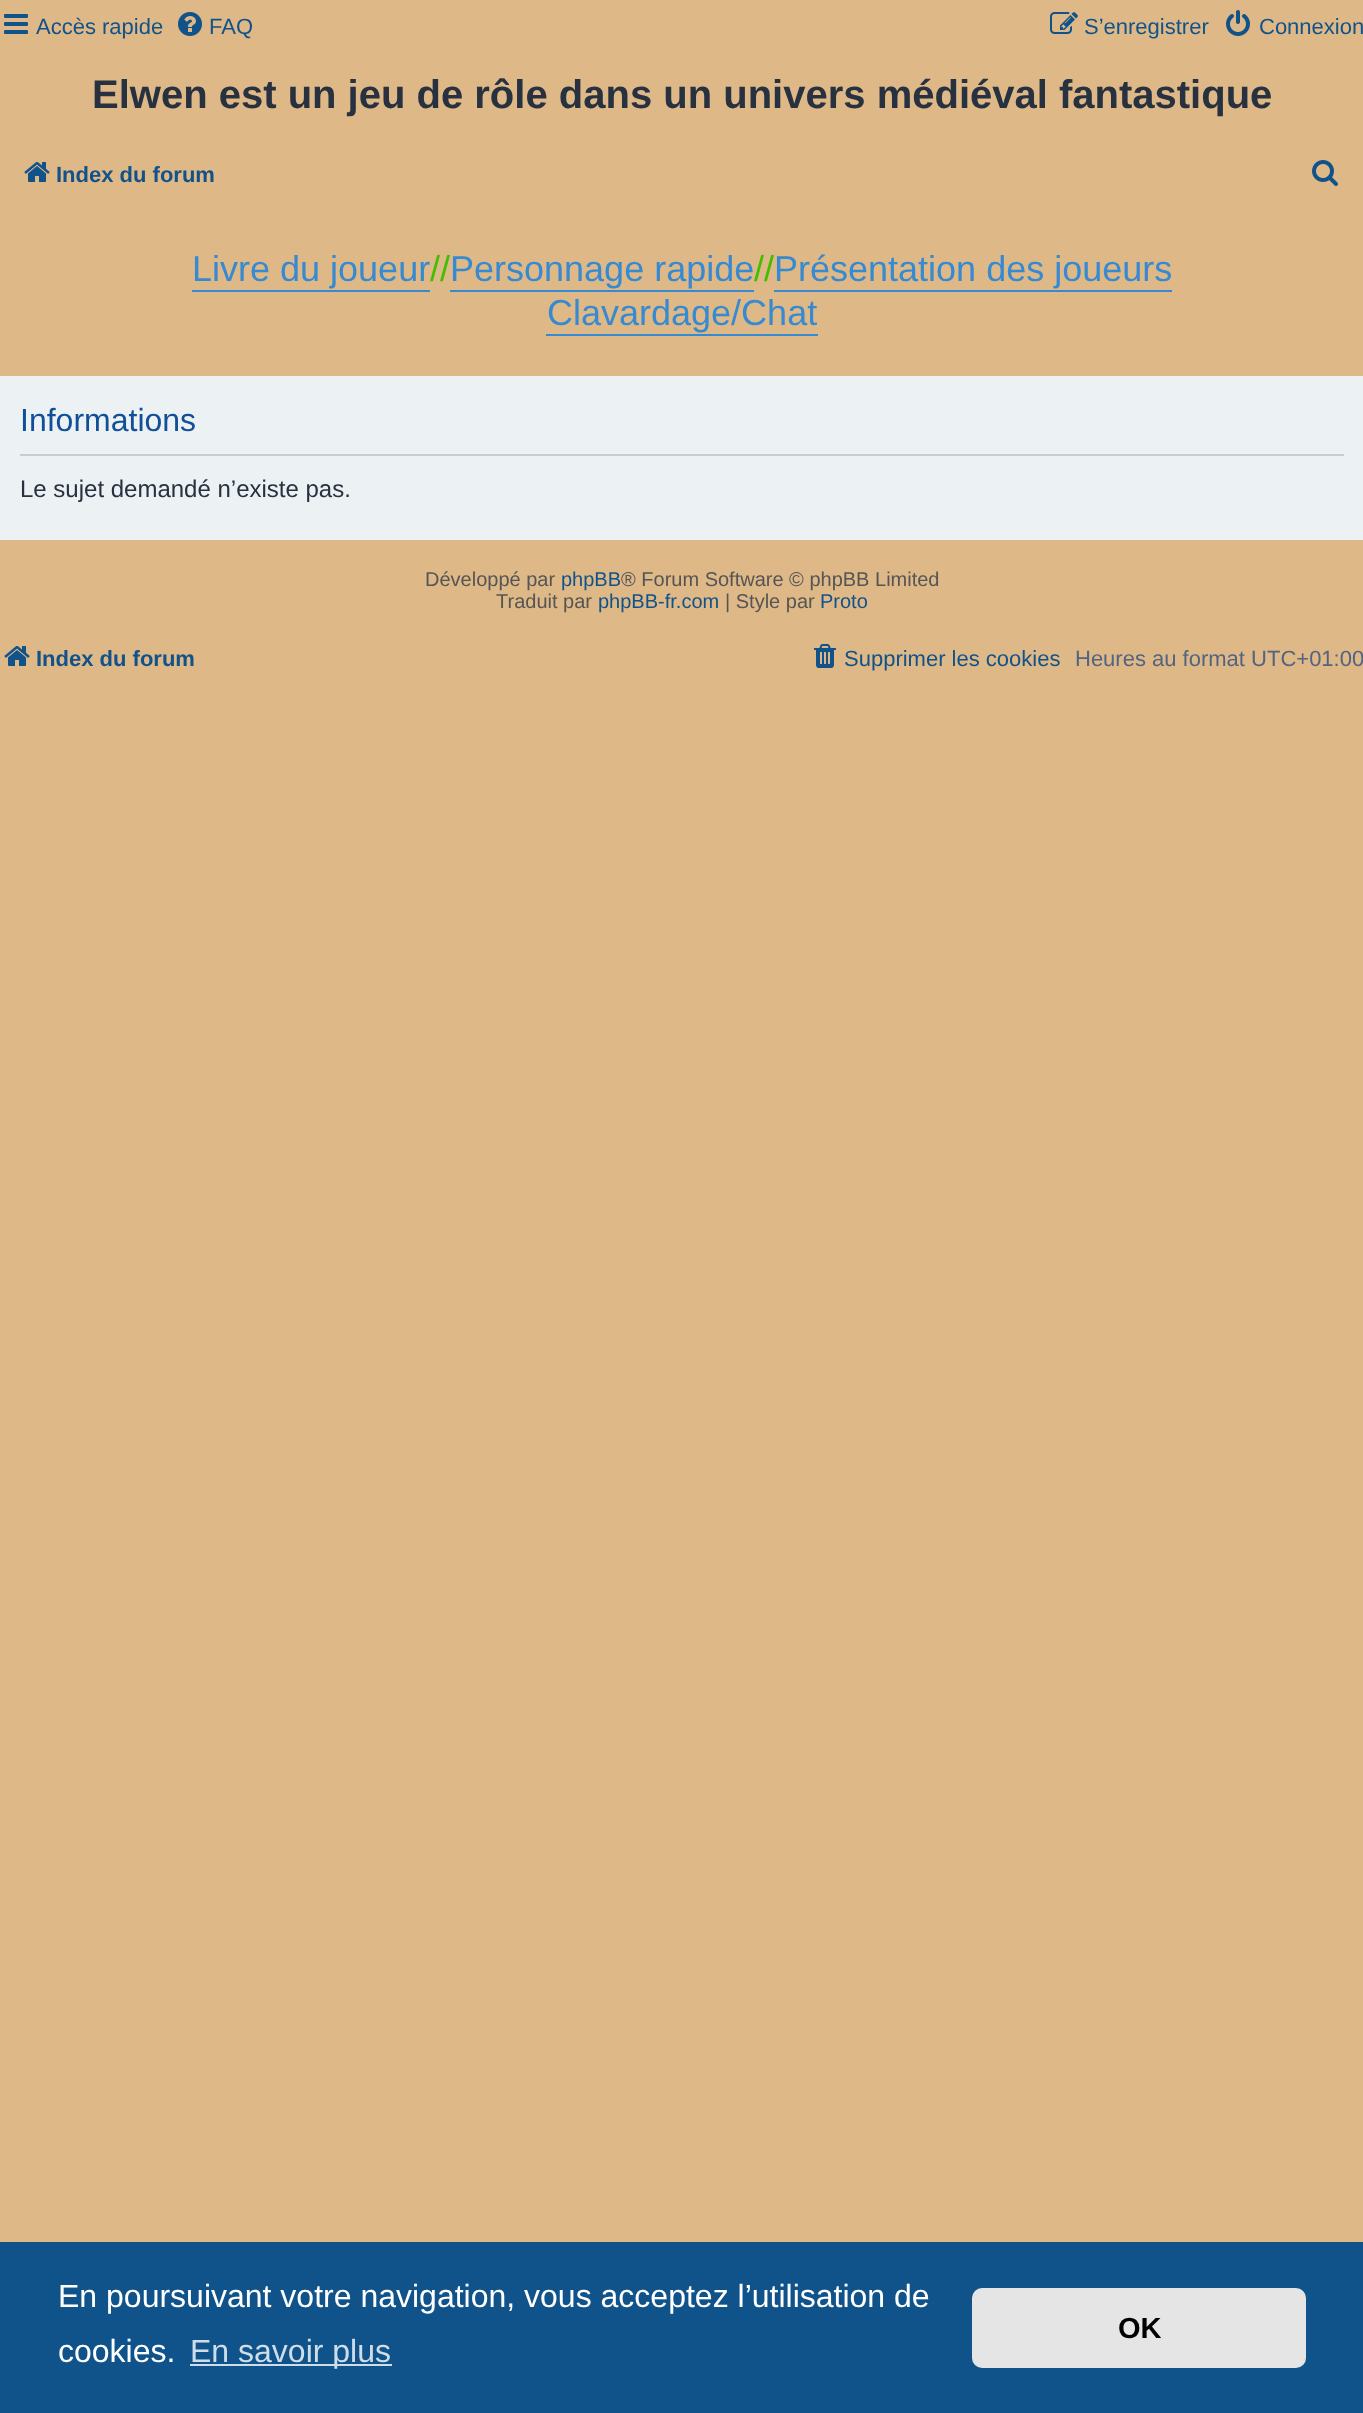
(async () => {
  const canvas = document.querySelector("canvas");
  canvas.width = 1363;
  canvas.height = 2413;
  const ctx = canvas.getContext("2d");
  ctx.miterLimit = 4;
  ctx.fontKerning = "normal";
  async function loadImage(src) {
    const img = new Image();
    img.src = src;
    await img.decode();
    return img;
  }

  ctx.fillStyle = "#deb887";
  ctx.fillRect(0, 0, 1363, 2413);
  ctx.drawImage(await loadImage("img/1.png"), 4, 14, 24, 20);
  ctx.drawImage(await loadImage("img/2.png"), 178, 12, 24, 24);
  ctx.drawImage(await loadImage("img/3.png"), 1050, 12, 28, 22);
  ctx.drawImage(await loadImage("img/4.png"), 1226, 10, 24, 26);
  ctx.drawImage(await loadImage("img/5.png"), 24, 162, 26, 20);
  ctx.drawImage(await loadImage("img/6.png"), 1312, 160, 26, 26);
  for (const [x, y, w, h, color] of [
    [192, 290, 238, 2, "#368ad2"],
    [450, 290, 304, 2, "#368ad2"],
    [774, 290, 398, 2, "#368ad2"],
    [546, 334, 272, 2, "#368ad2"],
    [0, 376, 1363, 164, "#ecf1f3"],
    [20, 454, 1324, 2, "#cccccc"],
  ]) {
    ctx.fillStyle = color;
    ctx.fillRect(x, y, w, h);
  }
  ctx.drawImage(await loadImage("img/5.png"), 4, 646, 26, 20);
  ctx.drawImage(await loadImage("img/7.png"), 814, 644, 22, 24);
  ctx.fillStyle = "#0f538a";
  ctx.fillRect(0, 2242, 1363, 171);
  ctx.fillStyle = "#cfdde8";
  ctx.fillRect(190, 2364, 202, 2);
  ctx.fillStyle = "#e5e5e5";
  ctx.beginPath();
  ctx.roundRect(972, 2288, 334, 80, 10);
  ctx.fill();
  ctx.font = "22px Liberation Sans";
  ctx.fillStyle = "#105289";
  for (const [text, x, y] of [
    ["Accès rapide", 36, 34],
    ["FAQ", 209, 34],
    ["S’enregistrer", 1084, 34],
    ["Connexion", 1259, 34],
  ]) {
    ctx.fillText(text, x, y);
  }
  ctx.font = "bold 40px Liberation Sans";
  ctx.fillStyle = "#28313f";
  ctx.fillText("Elwen est un jeu de rôle dans un univers médiéval fantastique", 92, 108);
  ctx.font = "bold 22px Liberation Sans";
  ctx.fillStyle = "#105289";
  ctx.fillText("Index du forum", 56, 182);
  ctx.font = "36px Liberation Sans";
  ctx.fillStyle = "#368ad2";
  ctx.fillText("Livre du joueur", 192, 281);
  ctx.fillStyle = "#40bf00";
  ctx.fillText("//", 430, 281);
  ctx.fillStyle = "#368ad2";
  ctx.fillText("Personnage rapide", 450, 281);
  ctx.fillStyle = "#40bf00";
  ctx.fillText("//", 754, 281);
  ctx.fillStyle = "#368ad2";
  ctx.fillText("Présentation des joueurs", 774, 281);
  ctx.fillText("Clavardage/Chat", 547, 325);
  ctx.font = "32px Liberation Sans";
  ctx.fillStyle = "#115098";
  ctx.fillText("Informations", 20, 431);
  ctx.font = "24px Liberation Sans";
  ctx.fillStyle = "#28313f";
  ctx.fillText("Le sujet demandé n’existe pas.", 20, 497);
  ctx.font = "20px Liberation Sans";
  ctx.fillStyle = "#555555";
  ctx.fillText("Développé par", 425, 586);
  ctx.fillStyle = "#105289";
  ctx.fillText("phpBB", 561, 586);
  ctx.fillStyle = "#555555";
  ctx.fillText("® Forum Software © phpBB Limited", 621, 586);
  ctx.fillText("Traduit par", 496, 608);
  ctx.fillStyle = "#105289";
  ctx.fillText("phpBB-fr.com", 598, 608);
  ctx.fillStyle = "#555555";
  ctx.fillText("| Style par", 725, 608);
  ctx.fillStyle = "#105289";
  ctx.fillText("Proto", 820, 608);
  ctx.font = "bold 22px Liberation Sans";
  ctx.fillText("Index du forum", 36, 666);
  ctx.font = "22px Liberation Sans";
  ctx.fillText("Supprimer les cookies", 844, 666);
  ctx.fillStyle = "#536482";
  ctx.fillText("Heures au format UTC+01:00", 1075, 666);
  ctx.font = "32px Liberation Sans";
  ctx.fillStyle = "#ffffff";
  ctx.fillText("En poursuivant votre navigation, vous acceptez l’utilisation de", 58, 2307);
  ctx.fillText("cookies.", 58, 2362);
  ctx.fillStyle = "#cfdde8";
  ctx.fillText("En savoir plus", 190, 2362);
  ctx.font = "bold 29px Liberation Sans";
  ctx.fillStyle = "#000000";
  ctx.fillText("OK", 1118, 2338);
})();
